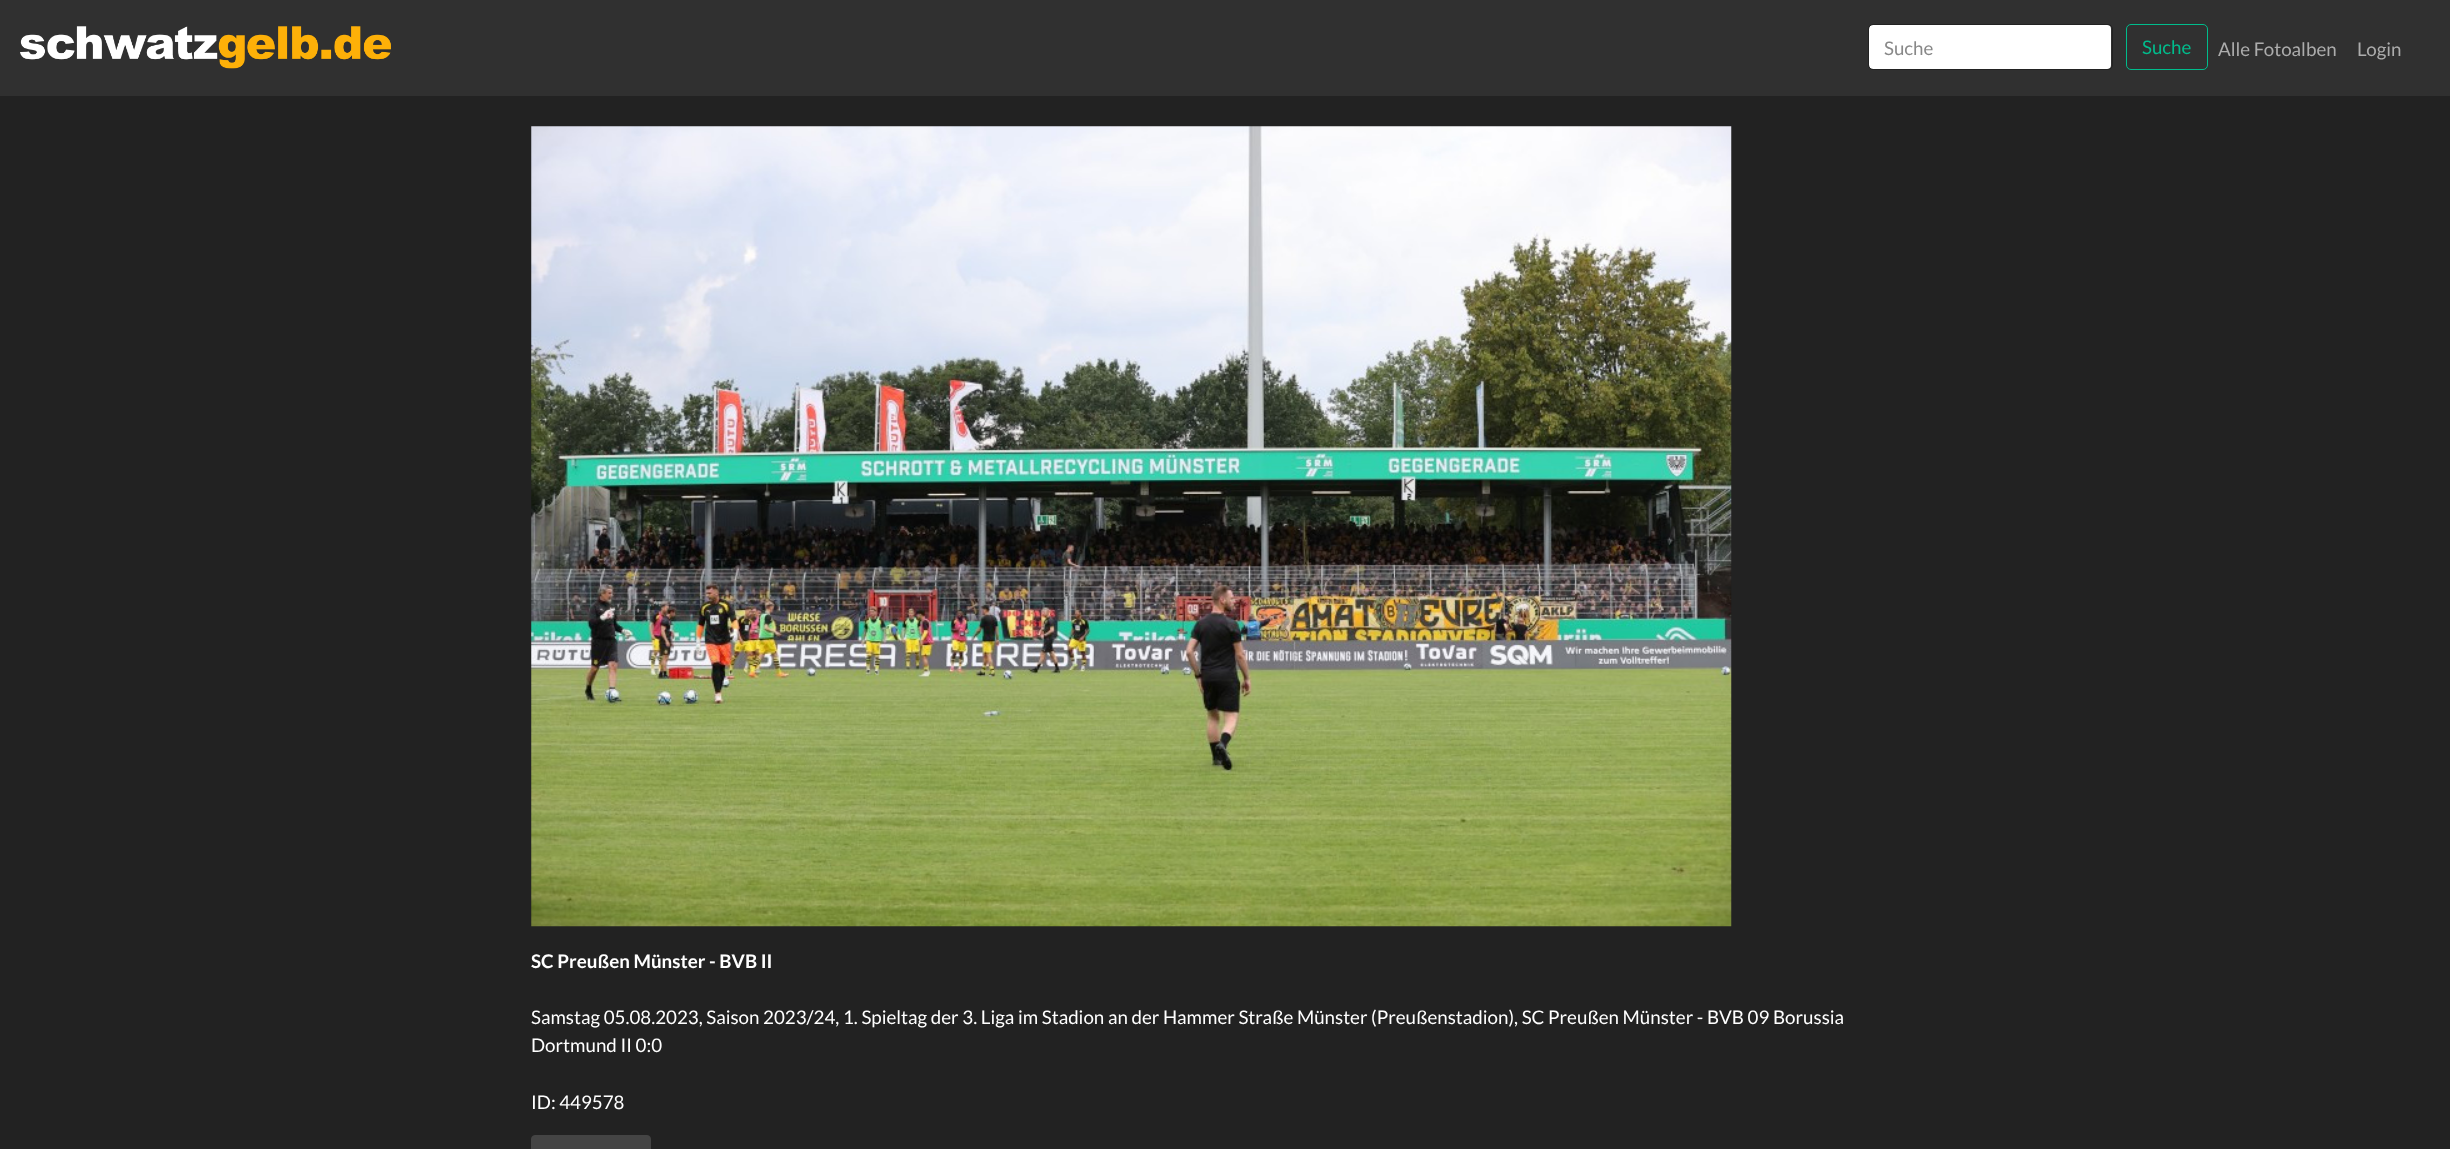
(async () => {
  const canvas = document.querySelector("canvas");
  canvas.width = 2450;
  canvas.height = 1149;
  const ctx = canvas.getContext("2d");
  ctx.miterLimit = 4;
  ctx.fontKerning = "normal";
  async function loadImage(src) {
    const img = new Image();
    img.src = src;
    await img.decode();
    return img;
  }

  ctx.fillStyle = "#222222";
  ctx.fillRect(0, 0, 2450, 1149);
  ctx.fillStyle = "#303030";
  ctx.fillRect(0, 0, 2450, 96);
  ctx.drawImage(await loadImage("img/1.png"), 20, 26, 371, 43);
  ctx.fillStyle = "#ffffff";
  ctx.beginPath();
  ctx.roundRect(1869, 25, 242, 44, 4);
  ctx.fill();
  ctx.beginPath();
  ctx.roundRect(1868.5, 24.5, 244, 45, 4.5);
  ctx.strokeStyle = "#222222";
  ctx.stroke();
  ctx.beginPath();
  ctx.roundRect(2126.5, 24.5, 81, 45, 4.5);
  ctx.strokeStyle = "#00bc8c";
  ctx.stroke();
  ctx.drawImage(await loadImage("img/2.png"), 531, 126, 1201, 801);
  ctx.fillStyle = "#444444";
  ctx.beginPath();
  ctx.roundRect(531.5, 1135.5, 119, 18, 3.5);
  ctx.fill();
  ctx.strokeStyle = "#444444";
  ctx.stroke();
  ctx.font = "18.75px Lato";
  ctx.fillStyle = "#888888";
  ctx.fillText("Suche", 1884, 55);
  ctx.fillStyle = "#00bc8c";
  ctx.fillText("Suche", 2142, 54);
  ctx.fillStyle = "#acacac";
  ctx.fillText("Alle Fotoalben", 2218, 56);
  ctx.fillText("Login", 2357, 56);
  ctx.font = "bold 18.75px Lato";
  ctx.fillStyle = "#ffffff";
  ctx.fillText("SC Preußen Münster - BVB II", 531, 968);
  ctx.font = "18.75px Lato";
  for (const [text, x, y] of [
    ["Samstag 05.08.2023, Saison 2023/24, 1. Spieltag der 3. Liga im Stadion an der Hammer Straße Münster (Preußenstadion), SC Preußen Münster - BVB 09 Borussia", 531, 1024],
    ["Dortmund II 0:0", 531, 1052],
    ["ID: 449578", 531, 1109],
  ]) {
    ctx.fillText(text, x, y);
  }
})();
